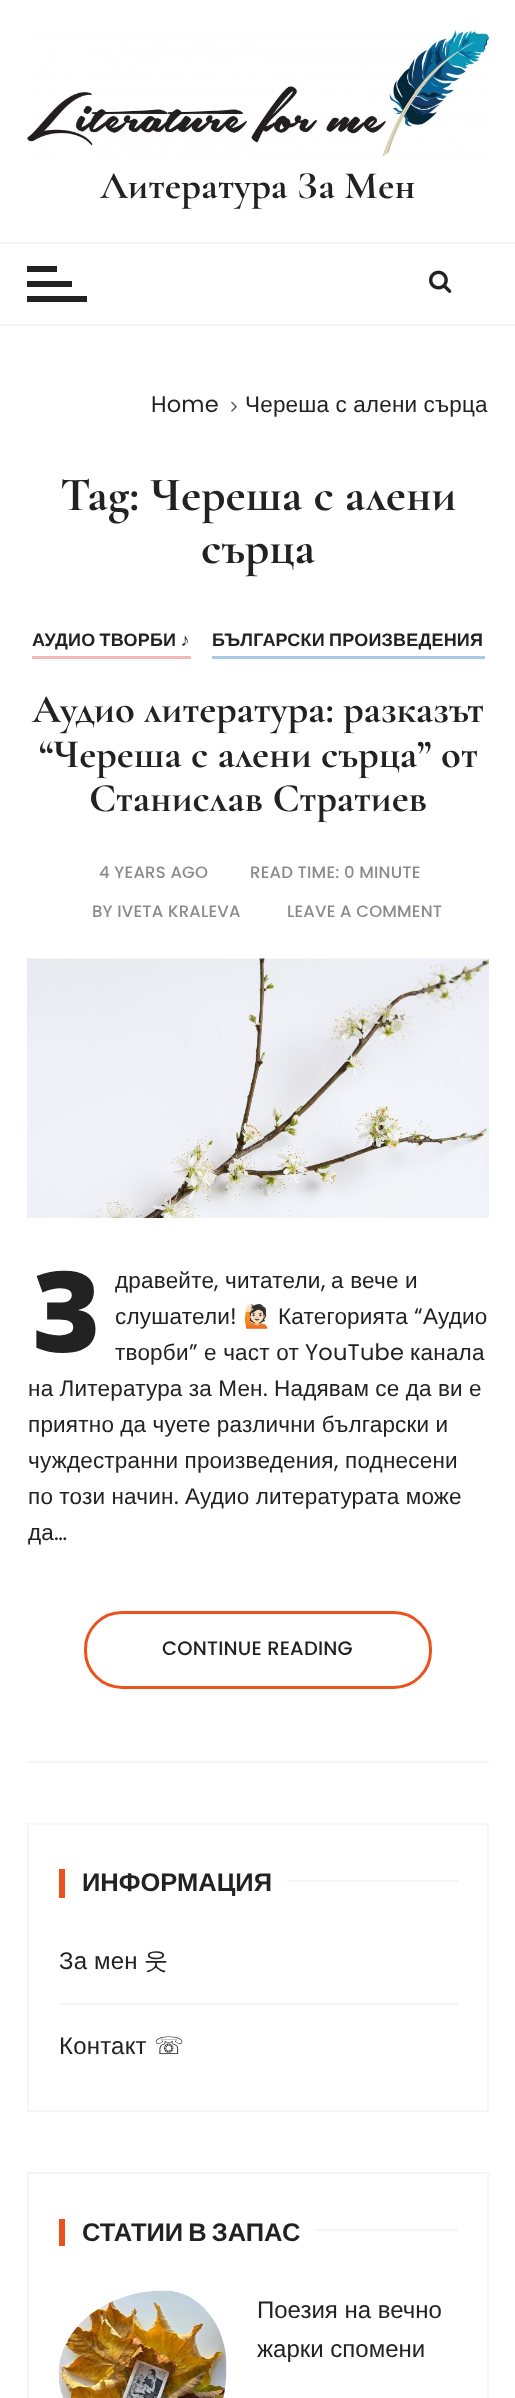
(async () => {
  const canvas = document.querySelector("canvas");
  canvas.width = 515;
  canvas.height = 2398;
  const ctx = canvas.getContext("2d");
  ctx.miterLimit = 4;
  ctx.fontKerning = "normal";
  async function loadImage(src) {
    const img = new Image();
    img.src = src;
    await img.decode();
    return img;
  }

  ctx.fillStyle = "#ffffff";
  ctx.fillRect(0, 0, 515, 2398);
  ctx.drawImage(await loadImage("img/1.png"), 27, 30, 462, 127);
  for (const [x, y, w, h, color] of [
    [0, 242, 515, 2, "#f5f5f5"],
    [0, 324, 515, 2, "#f5f5f5"],
    [27, 266, 30, 6, "#222222"],
    [27, 281, 45, 6, "#222222"],
    [27, 296, 60, 6, "#222222"],
  ]) {
    ctx.fillStyle = color;
    ctx.fillRect(x, y, w, h);
  }
  ctx.drawImage(await loadImage("img/2.png"), 429, 270, 23, 23);
  ctx.drawImage(await loadImage("img/3.png"), 231, 401, 6, 11);
  for (const [x, y, w, h, color] of [
    [27, 1761, 462, 2, "#f5f5f5"],
    [32, 656, 159, 3, "#f3b9b9"],
    [212, 656, 273, 3, "#a5caea"],
  ]) {
    ctx.fillStyle = color;
    ctx.fillRect(x, y, w, h);
  }
  ctx.drawImage(await loadImage("img/4.png"), 27, 958, 462, 260);
  ctx.beginPath();
  ctx.roundRect(85.5, 1612.5, 345, 75, 36.5);
  ctx.strokeStyle = "#ec521e";
  ctx.lineWidth = 3;
  ctx.stroke();
  ctx.strokeStyle = "#f5f5f5";
  ctx.lineWidth = 2;
  ctx.strokeRect(28, 1824, 460, 287);
  for (const [x, y, w, h, color] of [
    [59, 1869, 6, 29, "#ec521e"],
    [287, 1880, 171, 2, "#f5f5f5"],
    [59, 2003, 399, 2, "#f5f5f5"],
  ]) {
    ctx.fillStyle = color;
    ctx.fillRect(x, y, w, h);
  }
  ctx.strokeRect(28, 2173, 460, 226);
  ctx.fillStyle = "#ec521e";
  ctx.fillRect(59, 2219, 6, 27);
  ctx.fillStyle = "#f5f5f5";
  ctx.fillRect(315, 2229, 143, 2);
  ctx.drawImage(await loadImage("img/5.png"), 58, 2290, 169, 108);
  ctx.letterSpacing = "0.2px";
  ctx.font = "bold 39px Cormorant Garamond";
  ctx.fillStyle = "#222222";
  ctx.fillText("Литература За Мен", 100, 198);
  ctx.font = "22.5px Poppins";
  ctx.fillText("Home", 151, 412);
  ctx.wordSpacing = "-0.25px";
  ctx.font = "22.5px Liberation Sans";
  ctx.fillText("Череша с алени сърца", 245, 412);
  ctx.letterSpacing = "0px";
  ctx.wordSpacing = "0px";
  ctx.font = "bold 48px Cormorant Garamond";
  ctx.fillText("Tag: Череша с алени", 60, 510);
  ctx.fillText("сърца", 201, 563);
  ctx.letterSpacing = "0.2px";
  ctx.wordSpacing = "-1px";
  ctx.font = "bold 18px Liberation Sans";
  ctx.fillText("АУДИО ТВОРБИ ♪", 32, 646);
  ctx.fillText("БЪЛГАРСКИ ПРОИЗВЕДЕНИЯ", 212, 646);
  ctx.letterSpacing = "0px";
  ctx.wordSpacing = "0px";
  ctx.font = "bold 40.5px Cormorant Garamond";
  for (const [text, x, y] of [
    ["Аудио литература: разказът", 32, 722],
    ["“Череша с алени сърца” от", 39, 767],
    ["Станислав Стратиев", 89, 811],
  ]) {
    ctx.fillText(text, x, y);
  }
  ctx.letterSpacing = "0.2px";
  ctx.font = "500 16.5px Poppins";
  ctx.fillStyle = "#8c8b8b";
  for (const [text, x, y] of [
    ["4 YEARS AGO", 99, 878],
    ["READ TIME: 0 MINUTE", 250, 878],
    ["BY IVETA KRALEVA", 92, 917],
    ["LEAVE A COMMENT", 287, 917],
  ]) {
    ctx.fillText(text, x, y);
  }
  ctx.font = "900 112px Noto Sans";
  ctx.fillStyle = "#222222";
  ctx.fillText("З", 32, 1352);
  ctx.font = "22.5px Liberation Sans";
  ctx.fillText("дравейте", 115, 1288);
  ctx.font = "22.5px Poppins";
  ctx.fillText(",", 214, 1288);
  ctx.font = "22.5px Liberation Sans";
  ctx.fillText("читатели", 225, 1288);
  ctx.font = "22.5px Poppins";
  ctx.fillText(",", 321, 1288);
  ctx.font = "22.5px Liberation Sans";
  ctx.fillText("а вече и", 331, 1288);
  ctx.fillText("слушатели", 115, 1324);
  ctx.font = "22.5px Poppins";
  ctx.fillText("!", 230, 1324);
  ctx.font = "22.5px Noto Color Emoji";
  ctx.fillText("🙋🏻", 243, 1324);
  ctx.font = "22.5px Liberation Sans";
  ctx.fillText("Категорията", 278, 1324);
  ctx.font = "22.5px Poppins";
  ctx.fillText("“", 414, 1324);
  ctx.font = "22.5px Liberation Sans";
  ctx.fillText("Аудио", 423, 1324);
  ctx.fillText("творби", 115, 1360);
  ctx.font = "22.5px Poppins";
  ctx.fillText("”", 189, 1360);
  ctx.font = "22.5px Liberation Sans";
  ctx.fillText("е част от", 204, 1360);
  ctx.font = "22.5px Poppins";
  ctx.fillText("YouTube", 305, 1360);
  ctx.font = "22.5px Liberation Sans";
  ctx.fillText("канала", 410, 1360);
  ctx.wordSpacing = "-0.25px";
  ctx.fillText("на Литература за Мен", 28, 1396);
  ctx.wordSpacing = "0px";
  ctx.font = "22.5px Poppins";
  ctx.fillText(".", 263, 1396);
  ctx.wordSpacing = "-0.25px";
  ctx.font = "22.5px Liberation Sans";
  for (const [text, x, y] of [
    ["Надявам се да ви е", 274, 1396],
    ["приятно да чуете различни български и", 28, 1432],
    ["чуждестранни произведения", 28, 1468],
  ]) {
    ctx.fillText(text, x, y);
  }
  ctx.wordSpacing = "0px";
  ctx.font = "22.5px Poppins";
  ctx.fillText(",", 334, 1468);
  ctx.font = "22.5px Liberation Sans";
  ctx.fillText("поднесени", 345, 1468);
  ctx.wordSpacing = "-0.25px";
  ctx.fillText("по този начин", 28, 1504);
  ctx.wordSpacing = "0px";
  ctx.font = "22.5px Poppins";
  ctx.fillText(".", 174, 1504);
  ctx.wordSpacing = "-0.25px";
  ctx.font = "22.5px Liberation Sans";
  ctx.fillText("Аудио литературата може", 185, 1504);
  ctx.wordSpacing = "0px";
  ctx.fillText("да", 28, 1540);
  ctx.font = "22.5px Poppins";
  ctx.fillText("…", 54, 1540);
  ctx.font = "500 19.5px Poppins";
  ctx.fillText("CONTINUE READING", 162, 1655);
  ctx.letterSpacing = "0px";
  ctx.font = "bold 25.5px Liberation Sans";
  ctx.fillText("ИНФОРМАЦИЯ", 82, 1891);
  ctx.letterSpacing = "0.2px";
  ctx.font = "24px Liberation Sans";
  ctx.fillText("За мен", 59, 1969);
  ctx.font = "500 24px WenQuanYi Zen Hei";
  ctx.fillText("웃", 144, 1969);
  ctx.font = "24px Liberation Sans";
  ctx.fillText("Контакт", 59, 2054);
  ctx.font = "24px DejaVu Sans";
  ctx.fillText("☏", 154, 2054);
  ctx.letterSpacing = "0px";
  ctx.wordSpacing = "-2px";
  ctx.font = "bold 25.5px Liberation Sans";
  ctx.fillText("СТАТИИ В ЗАПАС", 82, 2241);
  ctx.wordSpacing = "0px";
  ctx.font = "24px Liberation Sans";
  ctx.fillText("Поезия на вечно", 257, 2318);
  ctx.fillText("жарки спомени", 257, 2357);
})();
